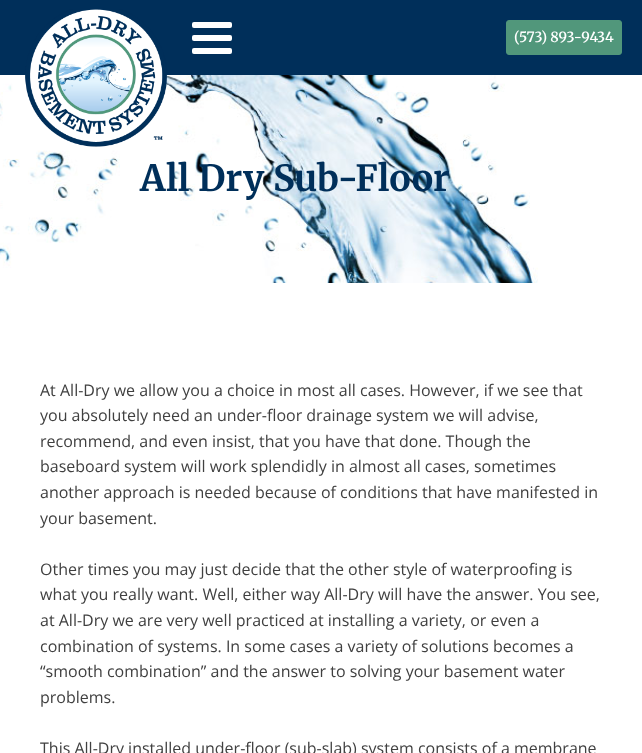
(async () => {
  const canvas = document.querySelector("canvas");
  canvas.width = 642;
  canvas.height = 753;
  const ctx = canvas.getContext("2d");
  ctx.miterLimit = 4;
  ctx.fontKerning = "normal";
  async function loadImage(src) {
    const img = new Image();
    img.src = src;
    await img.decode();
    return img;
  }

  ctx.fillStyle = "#ffffff";
  ctx.fillRect(0, 0, 642, 753);
  ctx.fillStyle = "#002f5a";
  ctx.fillRect(0, 0, 642, 75);
  ctx.drawImage(await loadImage("img/2.png"), 0, 75, 538, 208);
  ctx.drawImage(await loadImage("img/1.png"), 25, 9, 142, 138);
  ctx.fillStyle = "#ffffff";
  ctx.beginPath();
  ctx.roundRect(192, 22, 40, 6, 2);
  ctx.fill();
  ctx.beginPath();
  ctx.roundRect(192, 35, 40, 6, 2);
  ctx.fill();
  ctx.beginPath();
  ctx.roundRect(192, 48, 40, 6, 2);
  ctx.fill();
  ctx.fillStyle = "#51977b";
  ctx.beginPath();
  ctx.roundRect(506.5, 20.5, 115, 34, 2.5);
  ctx.fill();
  ctx.strokeStyle = "#51977b";
  ctx.stroke();
  ctx.font = "600 14px Merriweather";
  ctx.fillStyle = "#ffffff";
  ctx.fillText("(573) 893-9434", 514, 42);
  ctx.font = "bold 36px Merriweather";
  ctx.fillStyle = "#002f5a";
  ctx.fillText("All Dry Sub-Floor", 140, 191);
  ctx.font = "16px Open Sans";
  ctx.fillStyle = "#404040";
  for (const [text, x, y] of [
    ["At All-Dry we allow you a choice in most all cases. However, if we see that", 40, 396],
    ["you absolutely need an under-floor drainage system we will advise,", 40, 421],
    ["recommend, and even insist, that you have that done. Though the", 40, 447],
    ["baseboard system will work splendidly in almost all cases, sometimes", 40, 472],
    ["another approach is needed because of conditions that have manifested in", 40, 498],
    ["your basement.", 40, 524],
    ["Other times you may just decide that the other style of waterproofing is", 40, 575],
    ["what you really want. Well, either way All-Dry will have the answer. You see,", 40, 600],
    ["at All-Dry we are very well practiced at installing a variety, or even a", 40, 626],
    ["combination of systems. In some cases a variety of solutions becomes a", 40, 652],
    ["“smooth combination” and the answer to solving your basement water", 40, 677],
    ["problems.", 40, 703],
    ["This All-Dry installed under-floor (sub-slab) system consists of a membrane", 40, 754],
  ]) {
    ctx.fillText(text, x, y);
  }
})();
